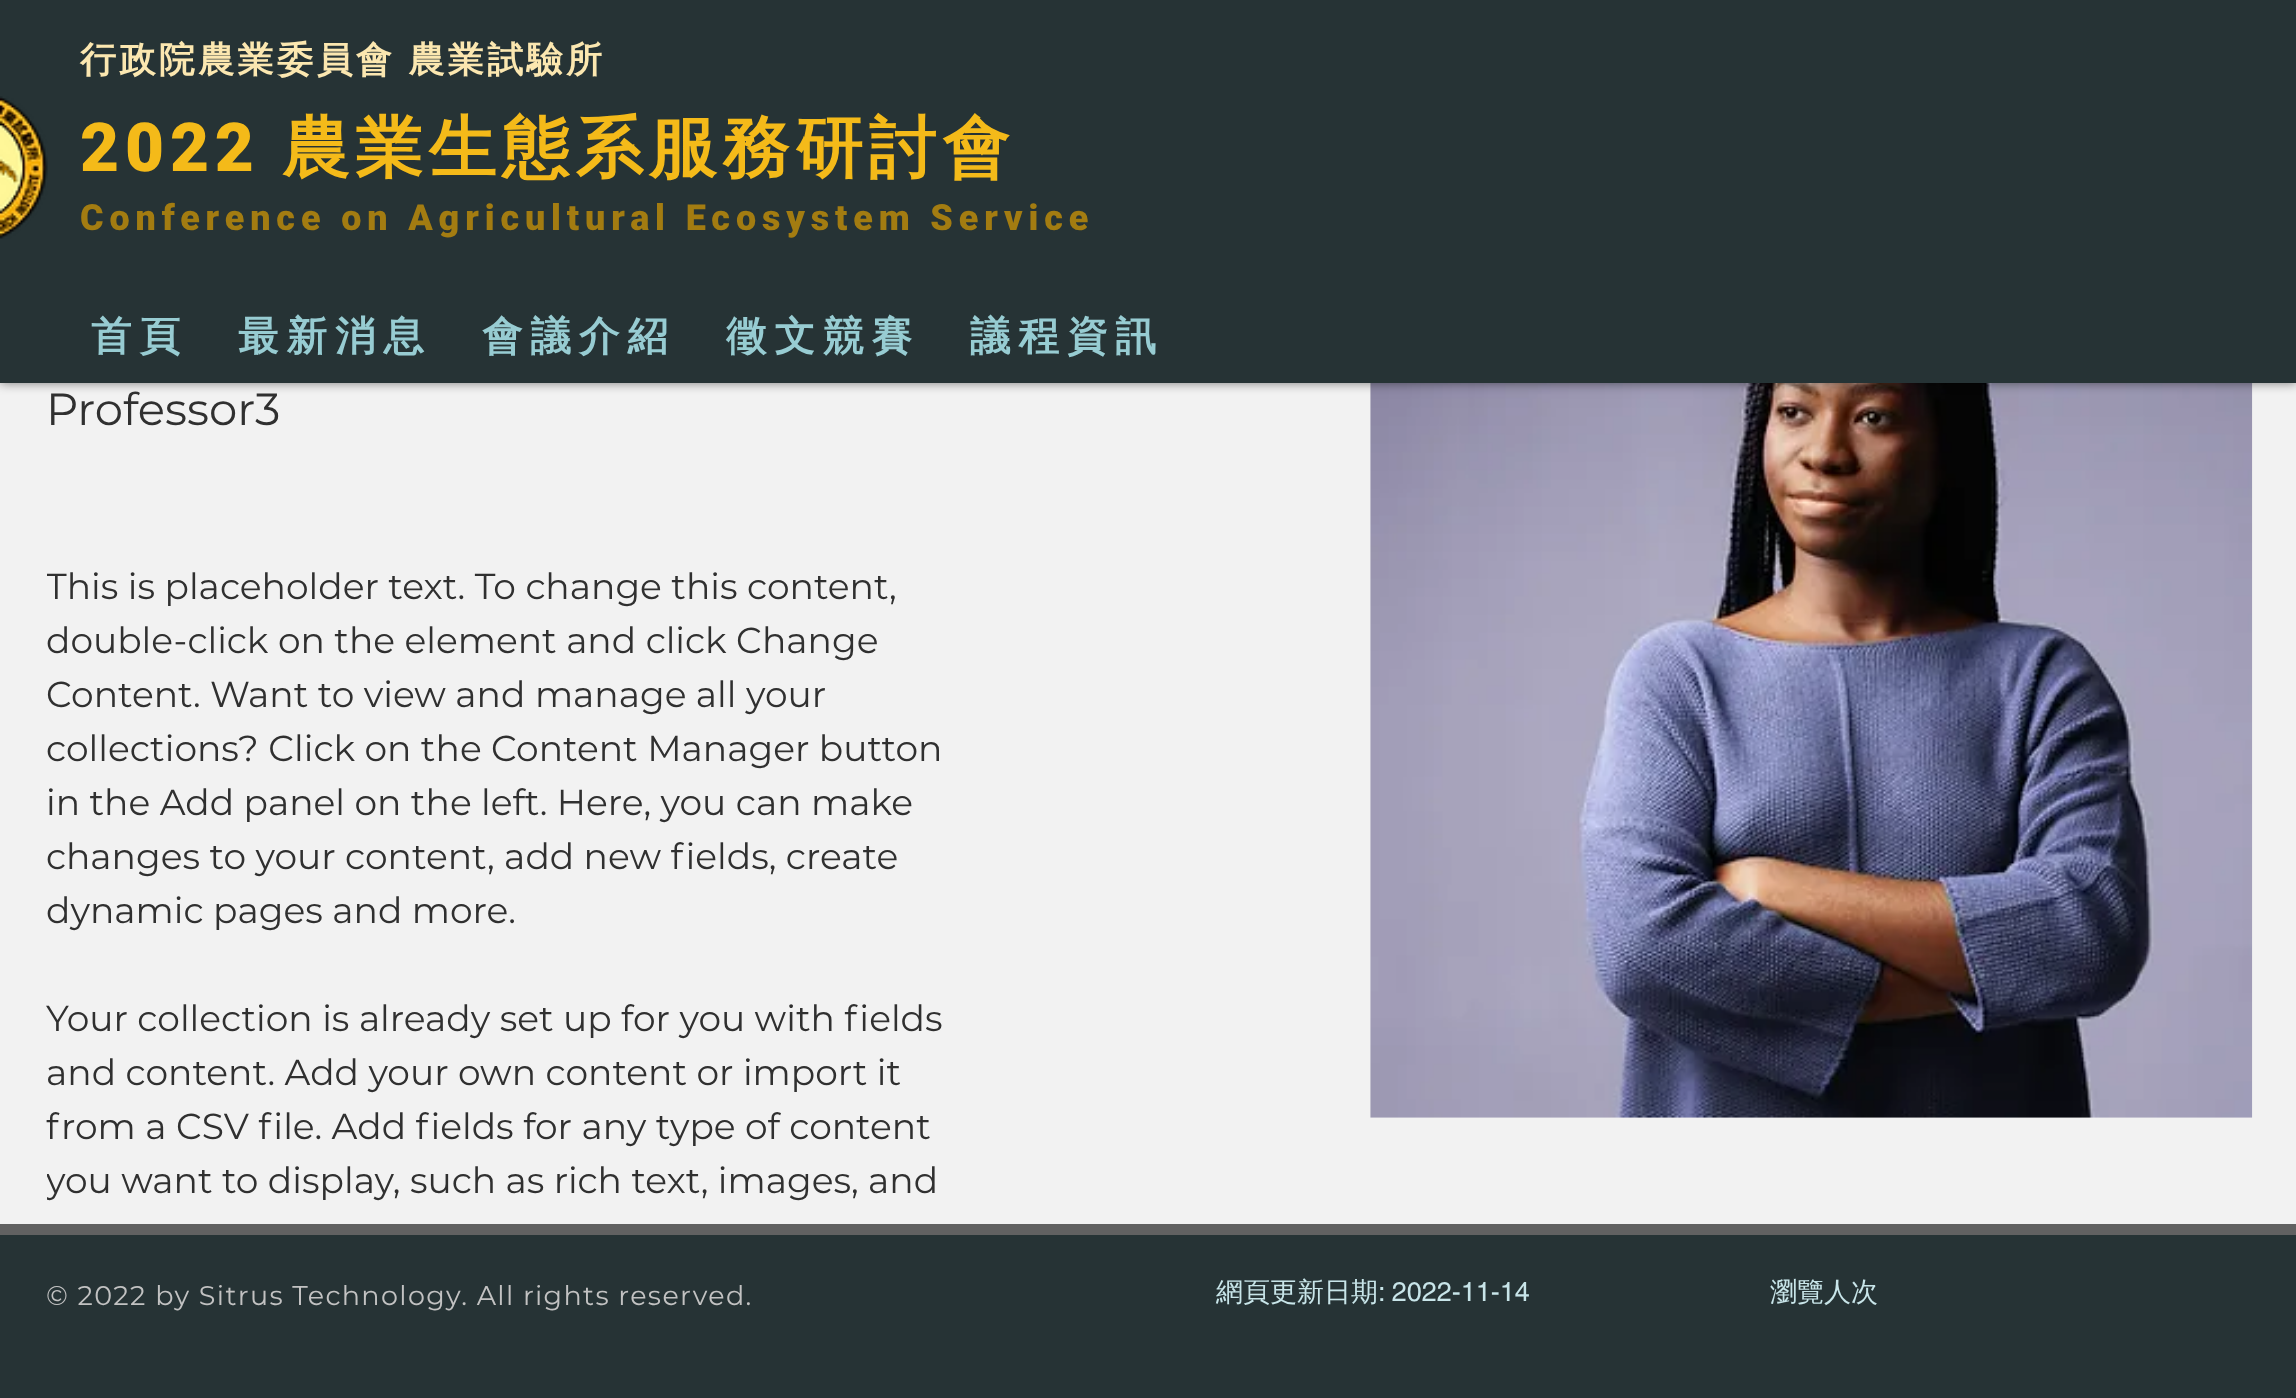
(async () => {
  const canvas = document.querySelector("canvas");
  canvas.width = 2296;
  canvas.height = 1398;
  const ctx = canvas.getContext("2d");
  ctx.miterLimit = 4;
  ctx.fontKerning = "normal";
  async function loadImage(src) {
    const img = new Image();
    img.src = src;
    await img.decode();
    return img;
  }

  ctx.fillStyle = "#f2f2f2";
  ctx.fillRect(0, 0, 2296, 1398);
  ctx.drawImage(await loadImage("img/2.png"), 1370, 383, 883, 735);
  ctx.fillStyle = "rgba(0, 0, 0, 0.5)";
  ctx.filter = "blur(5.5px)";
  ctx.beginPath();
  ctx.rect(0, 0, 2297, 383);
  ctx.fill();
  ctx.filter = "none";
  ctx.fillStyle = "#263335";
  ctx.fillRect(0, 0, 2296, 383);
  ctx.drawImage(await loadImage("img/1.png"), 0, 96, 48, 143);
  ctx.fillRect(0, 1235, 2296, 163);
  ctx.fillStyle = "#616161";
  ctx.fillRect(0, 1224, 2296, 11);
  ctx.letterSpacing = "3.4px";
  ctx.wordSpacing = "-1px";
  ctx.font = "bold 36px WenQuanYi Zen Hei";
  ctx.fillStyle = "#fbe7b0";
  ctx.fillText("行政院農業委員會 農業試驗所", 80, 72);
  ctx.letterSpacing = "5.85px";
  ctx.wordSpacing = "0px";
  ctx.font = "900 67.5px Roboto";
  ctx.fillStyle = "#f4ba19";
  ctx.fillText("2022", 80, 171);
  ctx.font = "bold 67.5px WenQuanYi Zen Hei";
  ctx.fillText("農業生態系服務研討會", 282, 171);
  ctx.font = "900 36px Roboto";
  ctx.fillStyle = "#a37c11";
  ctx.fillText("Conference on Agricultural Ecosystem Service", 80, 230);
  ctx.letterSpacing = "8px";
  ctx.font = "bold 40.5px WenQuanYi Zen Hei";
  ctx.fillStyle = "#97ccd2";
  for (const [text, x, y] of [
    ["首頁", 91, 350],
    ["最新消息", 238, 350],
    ["會議介紹", 482, 350],
    ["徵文競賽", 726, 350],
    ["議程資訊", 970, 350],
  ]) {
    ctx.fillText(text, x, y);
  }
  ctx.letterSpacing = "0px";
  ctx.font = "45px Montserrat";
  ctx.fillStyle = "#303030";
  ctx.fillText("Professor3", 46, 425);
  ctx.save();
  ctx.beginPath();
  ctx.rect(47, 560, 932, 810);
  ctx.clip();
  ctx.font = "36px Montserrat";
  ctx.fillText("This is placeholder text. To change this content,", 46, 599);
  ctx.restore();
  ctx.font = "36px Montserrat";
  for (const [text, x, y] of [
    ["double-click on the element and click Change", 46, 653],
    ["Content. Want to view and manage all your", 46, 707],
    ["collections? Click on the Content Manager button", 46, 761],
    ["in the Add panel on the left. Here, you can make", 46, 815],
    ["changes to your content, add new fields, create", 46, 869],
    ["dynamic pages and more.", 46, 923],
    ["Your collection is already set up for you with fields", 46, 1031],
    ["and content. Add your own content or import it", 46, 1085],
    ["from a CSV file. Add fields for any type of content", 46, 1139],
  ]) {
    ctx.fillText(text, x, y);
  }
  ctx.save();
  ctx.beginPath();
  ctx.rect(47, 560, 932, 810);
  ctx.clip();
  ctx.fillText("you want to display, such as rich text, images, and", 46, 1193);
  ctx.restore();
  ctx.letterSpacing = "1.35px";
  ctx.font = "27px Montserrat";
  ctx.fillStyle = "#c2c2c2";
  ctx.fillText("© 2022 by Sitrus Technology. All rights reserved.", 46, 1305);
  ctx.letterSpacing = "0px";
  ctx.font = "500 27px WenQuanYi Zen Hei";
  ctx.fillStyle = "#c8e5e9";
  ctx.fillText("網頁更新日期", 1216, 1301);
  ctx.font = "27px helvetica";
  ctx.fillText(": 2022-11-14", 1378, 1301);
  ctx.font = "500 27px WenQuanYi Zen Hei";
  ctx.fillText("瀏覽人次", 1770, 1301);
})();
